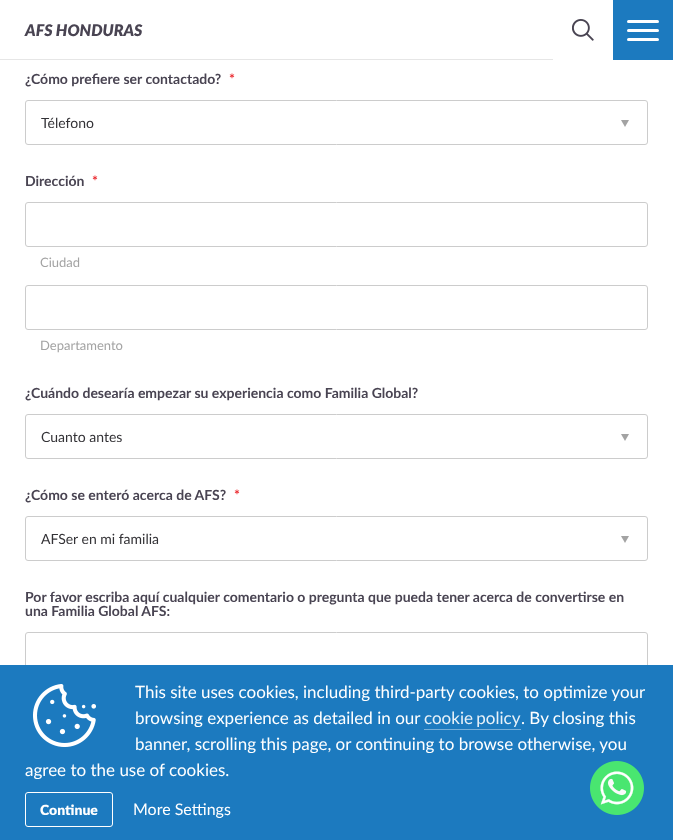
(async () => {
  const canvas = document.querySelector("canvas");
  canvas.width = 673;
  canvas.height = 840;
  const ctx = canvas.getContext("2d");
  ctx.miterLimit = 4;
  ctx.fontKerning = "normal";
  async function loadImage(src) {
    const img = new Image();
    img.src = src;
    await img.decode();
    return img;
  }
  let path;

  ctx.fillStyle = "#ffffff";
  ctx.fillRect(0, 0, 673, 840);
  ctx.drawImage(await loadImage("img/1.png"), 572, 19, 22, 22);
  ctx.fillStyle = "#1c7abf";
  ctx.fillRect(613, 0, 60, 60);
  ctx.fillStyle = "#ffffff";
  ctx.beginPath();
  ctx.roundRect(627, 29, 32, 3, 1.5);
  ctx.fill();
  ctx.beginPath();
  ctx.roundRect(627, 20, 32, 3, 1.5);
  ctx.fill();
  ctx.beginPath();
  ctx.roundRect(627, 38, 32, 3, 1.5);
  ctx.fill();
  ctx.fillStyle = "#e6e6e6";
  ctx.fillRect(0, 59, 553, 1);
  ctx.beginPath();
  ctx.roundRect(25.5, 100.5, 622, 44, 2.5);
  ctx.strokeStyle = "#cccccc";
  ctx.stroke();
  ctx.fillStyle = "#a3a3a3";
  path = new Path2D("M625 127L621 120H629Z");
  ctx.fill(path);
  ctx.beginPath();
  ctx.roundRect(25.5, 202.5, 622, 44, 2.5);
  ctx.stroke();
  ctx.beginPath();
  ctx.roundRect(25.5, 285.5, 622, 44, 2.5);
  ctx.stroke();
  ctx.beginPath();
  ctx.roundRect(25.5, 414.5, 622, 44, 2.5);
  ctx.stroke();
  path = new Path2D("M625 441L621 434H629Z");
  ctx.fill(path);
  ctx.beginPath();
  ctx.roundRect(25.5, 516.5, 622, 44, 2.5);
  ctx.stroke();
  path = new Path2D("M625 543L621 536H629Z");
  ctx.fill(path);
  ctx.beginPath();
  ctx.roundRect(25.5, 632.5, 622, 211, 2.5);
  ctx.stroke();
  ctx.fillStyle = "#1c7abf";
  ctx.fillRect(0, 665, 673, 175);
  ctx.drawImage(await loadImage("img/2.png"), 33, 684, 63, 63);
  ctx.fillStyle = "#77afd9";
  ctx.fillRect(424, 729, 97, 1);
  ctx.beginPath();
  ctx.roundRect(25.5, 792.5, 87, 34, 2.5);
  ctx.strokeStyle = "#ffffff";
  ctx.stroke();
  ctx.drawImage(await loadImage("img/3.png"), 590, 761, 54, 54);
  ctx.font = "italic 900 16px Lato";
  ctx.fillStyle = "#494452";
  ctx.fillText("AFS HONDURAS", 25, 36);
  ctx.font = "bold 14px Lato";
  ctx.fillText("¿Cómo prefiere ser contactado?", 25, 84);
  ctx.fillStyle = "#eb2c31";
  ctx.fillText("*", 229, 84);
  ctx.font = "14px Lato";
  ctx.fillStyle = "#333236";
  ctx.fillText("Télefono", 41, 128);
  ctx.font = "bold 14px Lato";
  ctx.fillStyle = "#494452";
  ctx.fillText("Dirección", 25, 186);
  ctx.fillStyle = "#eb2c31";
  ctx.fillText("*", 92, 186);
  ctx.font = "13px Lato";
  ctx.fillStyle = "#a3a3a3";
  ctx.fillText("Ciudad", 40, 267);
  ctx.fillText("Departamento", 40, 350);
  ctx.font = "bold 14px Lato";
  ctx.fillStyle = "#494452";
  ctx.fillText("¿Cuándo desearía empezar su experiencia como Familia Global?", 25, 398);
  ctx.font = "14px Lato";
  ctx.fillStyle = "#333236";
  ctx.fillText("Cuanto antes", 41, 442);
  ctx.font = "bold 14px Lato";
  ctx.fillStyle = "#494452";
  ctx.fillText("¿Cómo se enteró acerca de AFS?", 25, 500);
  ctx.fillStyle = "#eb2c31";
  ctx.fillText("*", 234, 500);
  ctx.font = "14px Lato";
  ctx.fillStyle = "#333236";
  ctx.fillText("AFSer en mi familia", 41, 544);
  ctx.font = "bold 14px Lato";
  ctx.fillStyle = "#494452";
  ctx.fillText("Por favor escriba aquí cualquier comentario o pregunta que pueda tener acerca de convertirse en", 25, 602);
  ctx.fillText("una Familia Global AFS:", 25, 616);
  ctx.font = "17px Lato";
  ctx.fillStyle = "#ffffff";
  ctx.fillText("This site uses cookies, including third-party cookies, to optimize your", 135, 698);
  ctx.fillText("browsing experience as detailed in our", 135, 724);
  ctx.wordSpacing = "-1px";
  ctx.fillStyle = "#e8f2f9";
  ctx.fillText("cookie policy", 424, 724);
  ctx.wordSpacing = "0px";
  ctx.fillStyle = "#ffffff";
  for (const [text, x, y] of [
    [". By closing this", 521, 724],
    ["banner, scrolling this page, or continuing to browse otherwise, you", 135, 750],
    ["agree to the use of cookies.", 25, 776],
  ]) {
    ctx.fillText(text, x, y);
  }
  ctx.font = "900 14px Lato";
  ctx.fillText("Continue", 40, 815);
  ctx.font = "16px Lato";
  ctx.fillText("More Settings", 133, 815);
})();
